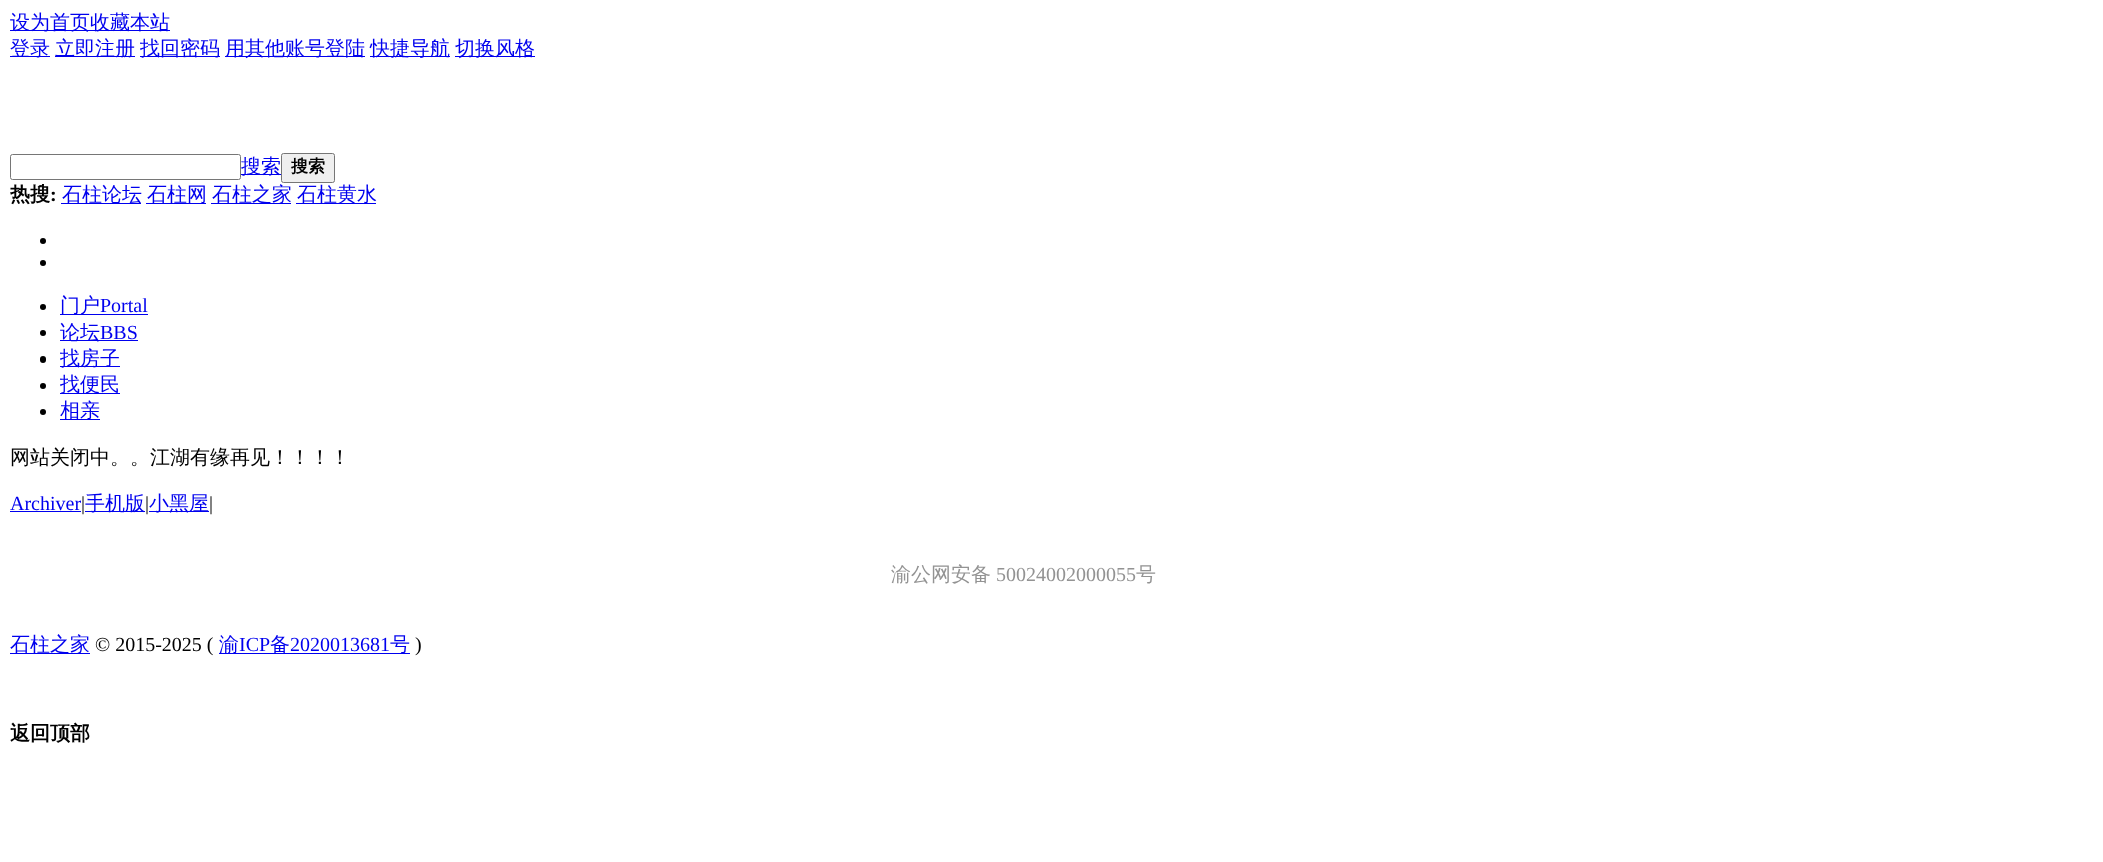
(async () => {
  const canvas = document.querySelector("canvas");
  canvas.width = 2103;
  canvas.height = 862;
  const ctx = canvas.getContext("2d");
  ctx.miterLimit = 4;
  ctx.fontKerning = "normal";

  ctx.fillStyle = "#ffffff";
  ctx.fillRect(0, 0, 2103, 862);
  for (const [x, y, w, h, color] of [
    [10, 30, 160, 1, "#0000ee"],
    [10, 56, 40, 1, "#0000ee"],
    [55, 56, 80, 1, "#0000ee"],
    [140, 56, 80, 1, "#0000ee"],
    [225, 56, 140, 1, "#0000ee"],
    [370, 56, 80, 1, "#0000ee"],
    [455, 56, 80, 1, "#0000ee"],
  ]) {
    ctx.fillStyle = color;
    ctx.fillRect(x, y, w, h);
  }
  ctx.beginPath();
  ctx.roundRect(10.5, 154.5, 230, 25, 2);
  ctx.strokeStyle = "#767676";
  ctx.stroke();
  ctx.fillRect(241, 174, 40, 1);
  ctx.fillStyle = "#efefef";
  ctx.beginPath();
  ctx.roundRect(281.5, 153.5, 53, 29, 2);
  ctx.fill();
  ctx.stroke();
  for (const [x, y, w, h, color] of [
    [61, 203, 80, 1, "#0000ee"],
    [146, 203, 60, 1, "#0000ee"],
    [211, 203, 80, 1, "#0000ee"],
    [296, 203, 80, 1, "#0000ee"],
  ]) {
    ctx.fillStyle = color;
    ctx.fillRect(x, y, w, h);
  }
  ctx.fillStyle = "#000000";
  ctx.beginPath();
  ctx.arc(43, 241, 3, 0, Math.PI * 2);
  ctx.fill();
  ctx.beginPath();
  ctx.arc(43, 263, 3, 0, Math.PI * 2);
  ctx.fill();
  ctx.beginPath();
  ctx.arc(43, 307, 3, 0, Math.PI * 2);
  ctx.fill();
  ctx.fillStyle = "#0000ee";
  ctx.fillRect(60, 314, 88, 1);
  ctx.fillStyle = "#000000";
  ctx.beginPath();
  ctx.arc(43, 333, 3, 0, Math.PI * 2);
  ctx.fill();
  ctx.fillStyle = "#0000ee";
  ctx.fillRect(60, 340, 78, 1);
  ctx.fillStyle = "#000000";
  ctx.beginPath();
  ctx.roundRect(40, 356, 6, 7, 3);
  ctx.fill();
  ctx.fillStyle = "#0000ee";
  ctx.fillRect(60, 366, 60, 1);
  ctx.fillStyle = "#000000";
  ctx.beginPath();
  ctx.arc(43, 386, 3, 0, Math.PI * 2);
  ctx.fill();
  ctx.fillStyle = "#0000ee";
  ctx.fillRect(60, 393, 60, 1);
  ctx.fillStyle = "#000000";
  ctx.beginPath();
  ctx.arc(43, 412, 3, 0, Math.PI * 2);
  ctx.fill();
  for (const [x, y, w, h, color] of [
    [60, 419, 40, 1, "#0000ee"],
    [10, 511, 71, 1, "#0000ee"],
    [85, 511, 60, 1, "#0000ee"],
    [149, 511, 60, 1, "#0000ee"],
    [10, 653, 80, 1, "#0000ee"],
    [219, 653, 191, 1, "#0000ee"],
  ]) {
    ctx.fillStyle = color;
    ctx.fillRect(x, y, w, h);
  }
  ctx.font = "500 20px WenQuanYi Zen Hei";
  for (const [text, x, y] of [
    ["设为首页收藏本站", 10, 29],
    ["登录", 10, 55],
    ["立即注册", 55, 55],
    ["找回密码", 140, 55],
    ["用其他账号登陆", 225, 55],
    ["快捷导航", 370, 55],
    ["切换风格", 455, 55],
    ["搜索", 241, 173],
  ]) {
    ctx.fillText(text, x, y);
  }
  ctx.font = "bold 17px WenQuanYi Zen Hei";
  ctx.fillStyle = "#000000";
  ctx.fillText("搜索", 291, 172);
  ctx.font = "bold 20px WenQuanYi Zen Hei";
  ctx.fillText("热搜", 10, 201);
  ctx.font = "bold 20px Liberation Serif";
  ctx.fillText(":", 50, 201);
  ctx.font = "500 20px WenQuanYi Zen Hei";
  ctx.fillStyle = "#0000ee";
  for (const [text, x, y] of [
    ["石柱论坛", 62, 201],
    ["石柱网", 147, 201],
    ["石柱之家", 212, 201],
    ["石柱黄水", 297, 201],
    ["门户", 60, 312],
  ]) {
    ctx.fillText(text, x, y);
  }
  ctx.font = "20px Liberation Serif";
  ctx.fillText("Portal", 100, 312);
  ctx.font = "500 20px WenQuanYi Zen Hei";
  ctx.fillText("论坛", 60, 339);
  ctx.font = "20px Liberation Serif";
  ctx.fillText("BBS", 100, 339);
  ctx.font = "500 20px WenQuanYi Zen Hei";
  for (const [text, x, y] of [
    ["找房子", 60, 365],
    ["找便民", 60, 391],
    ["相亲", 60, 417],
  ]) {
    ctx.fillText(text, x, y);
  }
  ctx.fillStyle = "#000000";
  ctx.fillText("网站关闭中。。江湖有缘再见！！！！", 10, 464);
  ctx.font = "20px Liberation Serif";
  ctx.fillStyle = "#0000ee";
  ctx.fillText("Archiver", 10, 510);
  ctx.fillStyle = "#000000";
  ctx.fillText("|", 81, 510);
  ctx.font = "500 20px WenQuanYi Zen Hei";
  ctx.fillStyle = "#0000ee";
  ctx.fillText("手机版", 85, 510);
  ctx.font = "20px Liberation Serif";
  ctx.fillStyle = "#000000";
  ctx.fillText("|", 145, 510);
  ctx.font = "500 20px WenQuanYi Zen Hei";
  ctx.fillStyle = "#0000ee";
  ctx.fillText("小黑屋", 149, 510);
  ctx.font = "20px Liberation Serif";
  ctx.fillStyle = "#000000";
  ctx.fillText("|", 209, 510);
  ctx.font = "500 20px WenQuanYi Zen Hei";
  ctx.fillStyle = "#939393";
  ctx.fillText("渝公网安备", 891, 581);
  ctx.font = "20px Liberation Serif";
  ctx.fillText("50024002000055", 996, 581);
  ctx.font = "500 20px WenQuanYi Zen Hei";
  ctx.fillText("号", 1136, 581);
  ctx.fillStyle = "#0000ee";
  ctx.fillText("石柱之家", 10, 651);
  ctx.font = "20px Liberation Serif";
  ctx.fillStyle = "#000000";
  ctx.fillText("© 2015-2025 (", 95, 651);
  ctx.font = "500 20px WenQuanYi Zen Hei";
  ctx.fillStyle = "#0000ee";
  ctx.fillText("渝", 219, 651);
  ctx.font = "20px Liberation Serif";
  ctx.fillText("ICP", 239, 651);
  ctx.font = "500 20px WenQuanYi Zen Hei";
  ctx.fillText("备", 270, 651);
  ctx.font = "20px Liberation Serif";
  ctx.fillText("2020013681", 290, 651);
  ctx.font = "500 20px WenQuanYi Zen Hei";
  ctx.fillText("号", 390, 651);
  ctx.font = "20px Liberation Serif";
  ctx.fillStyle = "#000000";
  ctx.fillText(")", 415, 651);
  ctx.font = "bold 20px WenQuanYi Zen Hei";
  ctx.fillText("返回顶部", 10, 740);
})();
